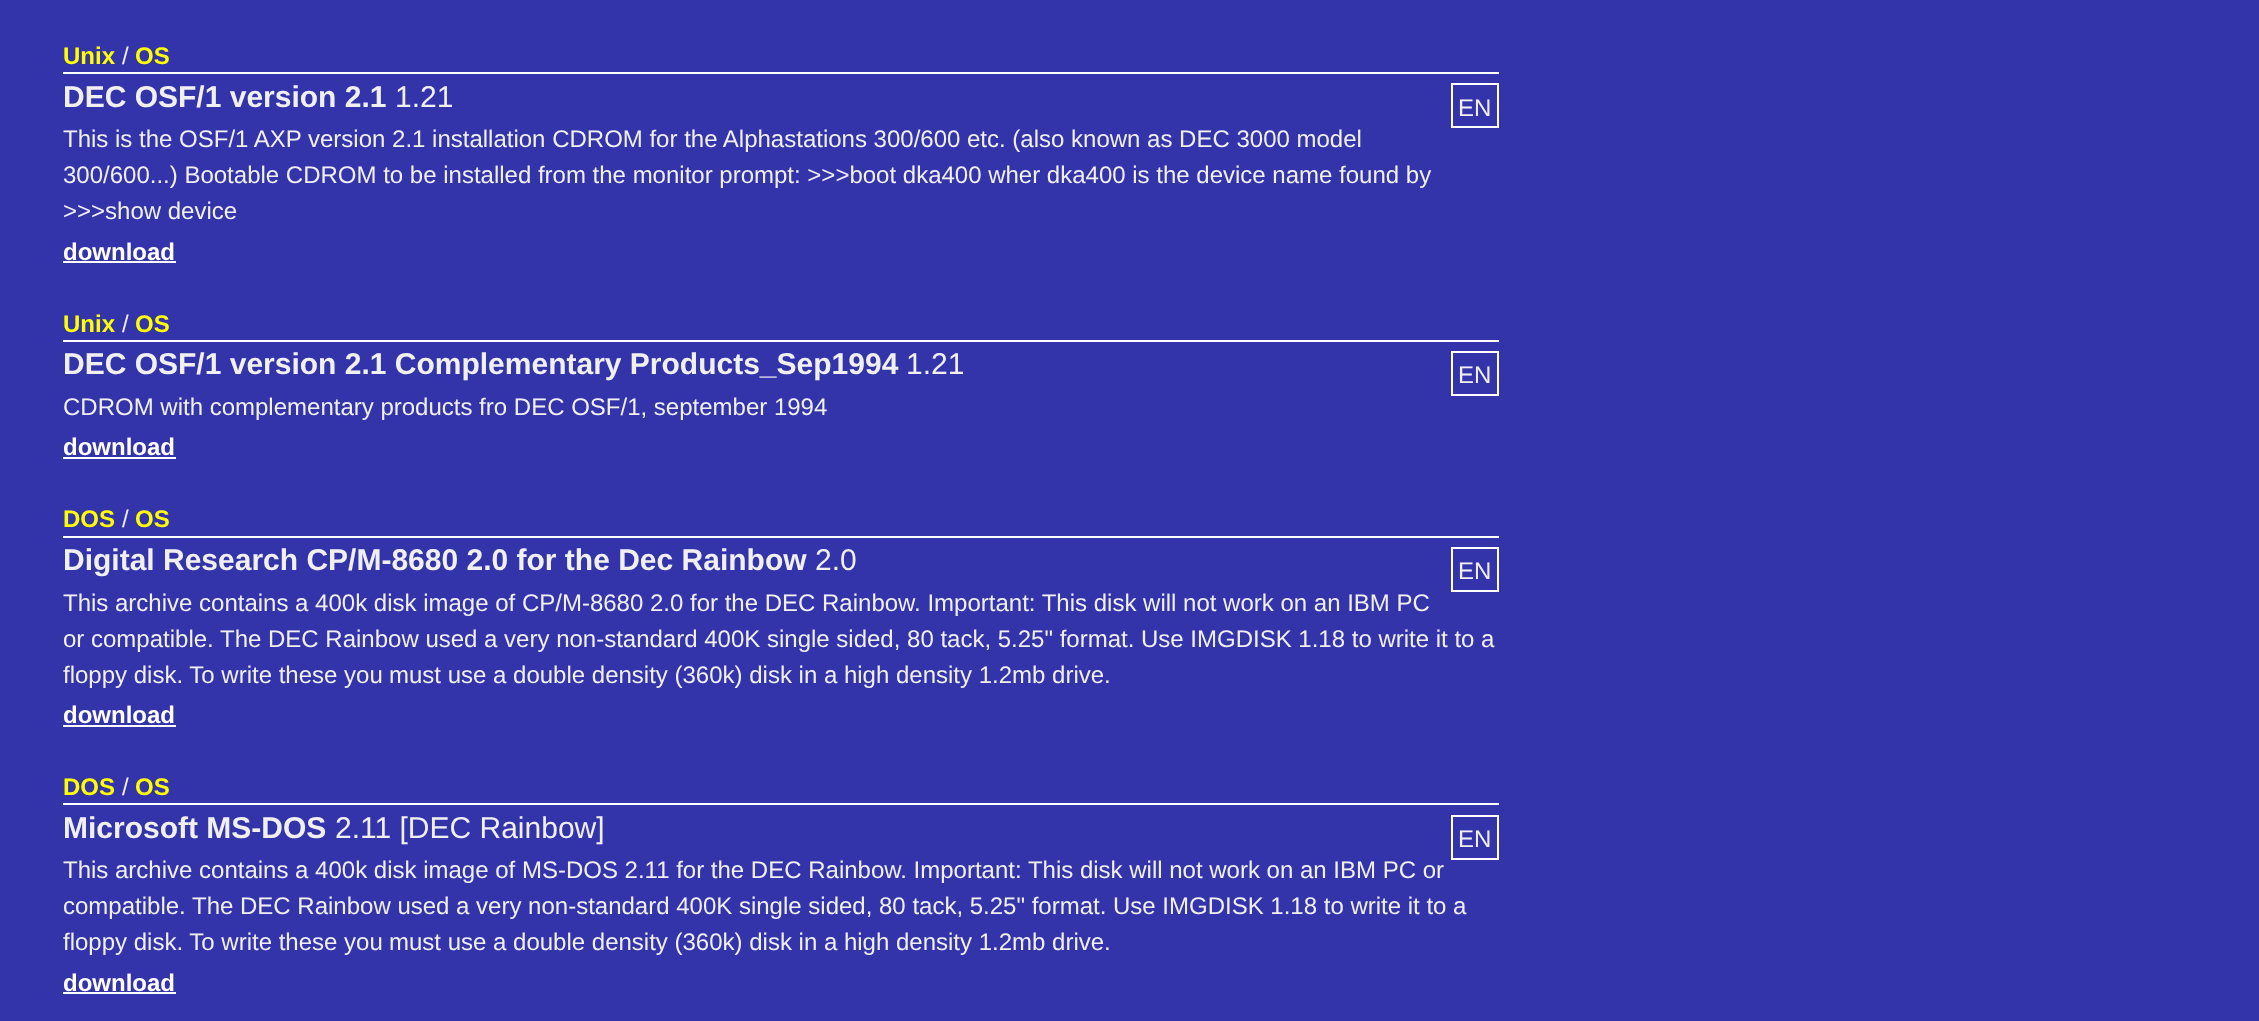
(async () => {
  const canvas = document.querySelector("canvas");
  canvas.width = 2259;
  canvas.height = 1021;
  const ctx = canvas.getContext("2d");
  ctx.miterLimit = 4;
  ctx.fontKerning = "normal";

  ctx.fillStyle = "#3333aa";
  ctx.fillRect(0, 0, 2259, 1021);
  ctx.fillStyle = "#ffffff";
  ctx.fillRect(63, 72, 1436, 2);
  ctx.strokeStyle = "#ffffff";
  ctx.lineWidth = 2;
  ctx.strokeRect(1452, 84, 46, 43);
  ctx.fillRect(63, 261, 113, 2);
  ctx.fillRect(63, 340, 1436, 2);
  ctx.strokeRect(1452, 352, 46, 43);
  ctx.fillRect(63, 457, 113, 2);
  ctx.fillRect(63, 536, 1436, 2);
  ctx.strokeRect(1452, 548, 46, 43);
  ctx.fillRect(63, 725, 113, 2);
  ctx.fillRect(63, 803, 1436, 2);
  ctx.strokeRect(1452, 816, 46, 43);
  ctx.fillRect(63, 992, 113, 2);
  ctx.font = "bold 24px Liberation Sans";
  ctx.fillStyle = "#ffff00";
  ctx.fillText("Unix", 63, 64);
  ctx.font = "24px Liberation Sans";
  ctx.fillStyle = "#f0f0f0";
  ctx.fillText("/", 122, 64);
  ctx.font = "bold 24px Liberation Sans";
  ctx.fillStyle = "#ffff00";
  ctx.fillText("OS", 135, 64);
  ctx.font = "bold 30px Liberation Sans";
  ctx.fillStyle = "#f0f0f0";
  ctx.fillText("DEC OSF/1 version 2.1", 63, 107);
  ctx.font = "30px Liberation Sans";
  ctx.fillText("1.21", 395, 107);
  ctx.font = "24px Liberation Sans";
  for (const [text, x, y] of [
    ["EN", 1458, 116],
    ["This is the OSF/1 AXP version 2.1 installation CDROM for the Alphastations 300/600 etc. (also known as DEC 3000 model", 63, 147],
    ["300/600...) Bootable CDROM to be installed from the monitor prompt: >>>boot dka400 wher dka400 is the device name found by", 63, 183],
    [">>>show device", 63, 219],
  ]) {
    ctx.fillText(text, x, y);
  }
  ctx.font = "bold 24px Liberation Sans";
  ctx.fillStyle = "#ffffff";
  ctx.fillText("download", 63, 260);
  ctx.fillStyle = "#ffff00";
  ctx.fillText("Unix", 63, 332);
  ctx.font = "24px Liberation Sans";
  ctx.fillStyle = "#f0f0f0";
  ctx.fillText("/", 122, 332);
  ctx.font = "bold 24px Liberation Sans";
  ctx.fillStyle = "#ffff00";
  ctx.fillText("OS", 135, 332);
  ctx.font = "bold 30px Liberation Sans";
  ctx.fillStyle = "#f0f0f0";
  ctx.fillText("DEC OSF/1 version 2.1 Complementary Products_Sep1994", 63, 374);
  ctx.font = "30px Liberation Sans";
  ctx.fillText("1.21", 906, 374);
  ctx.font = "24px Liberation Sans";
  ctx.fillText("EN", 1458, 383);
  ctx.fillText("CDROM with complementary products fro DEC OSF/1, september 1994", 63, 415);
  ctx.font = "bold 24px Liberation Sans";
  ctx.fillStyle = "#ffffff";
  ctx.fillText("download", 63, 455);
  ctx.fillStyle = "#ffff00";
  ctx.fillText("DOS", 63, 527);
  ctx.font = "24px Liberation Sans";
  ctx.fillStyle = "#f0f0f0";
  ctx.fillText("/", 122, 527);
  ctx.font = "bold 24px Liberation Sans";
  ctx.fillStyle = "#ffff00";
  ctx.fillText("OS", 135, 527);
  ctx.font = "bold 30px Liberation Sans";
  ctx.fillStyle = "#f0f0f0";
  ctx.fillText("Digital Research CP/M-8680 2.0 for the Dec Rainbow", 63, 570);
  ctx.font = "30px Liberation Sans";
  ctx.fillText("2.0", 815, 570);
  ctx.font = "24px Liberation Sans";
  for (const [text, x, y] of [
    ["EN", 1458, 579],
    ["This archive contains a 400k disk image of CP/M-8680 2.0 for the DEC Rainbow. Important: This disk will not work on an IBM PC", 63, 611],
    ["or compatible. The DEC Rainbow used a very non-standard 400K single sided, 80 tack, 5.25\" format. Use IMGDISK 1.18 to write it to a", 63, 647],
    ["floppy disk. To write these you", 63, 683],
    ["must use a double density (360k) disk in a high density 1.2mb drive.", 389, 683],
  ]) {
    ctx.fillText(text, x, y);
  }
  ctx.font = "bold 24px Liberation Sans";
  ctx.fillStyle = "#ffffff";
  ctx.fillText("download", 63, 723);
  ctx.fillStyle = "#ffff00";
  ctx.fillText("DOS", 63, 795);
  ctx.font = "24px Liberation Sans";
  ctx.fillStyle = "#f0f0f0";
  ctx.fillText("/", 122, 795);
  ctx.font = "bold 24px Liberation Sans";
  ctx.fillStyle = "#ffff00";
  ctx.fillText("OS", 135, 795);
  ctx.font = "bold 30px Liberation Sans";
  ctx.fillStyle = "#f0f0f0";
  ctx.fillText("Microsoft MS-DOS", 63, 838);
  ctx.font = "30px Liberation Sans";
  ctx.fillText("2.11 [DEC Rainbow]", 335, 838);
  ctx.font = "24px Liberation Sans";
  for (const [text, x, y] of [
    ["EN", 1458, 847],
    ["This archive contains a 400k disk image of MS-DOS 2.11 for the DEC Rainbow. Important: This disk will not work on an IBM PC or", 63, 878],
    ["compatible. The DEC Rainbow used a very non-standard 400K single sided, 80 tack, 5.25\" format. Use IMGDISK 1.18 to write it to a", 63, 914],
    ["floppy disk. To write these you", 63, 950],
    ["must use a double density (360k) disk in a high density 1.2mb drive.", 389, 950],
  ]) {
    ctx.fillText(text, x, y);
  }
  ctx.font = "bold 24px Liberation Sans";
  ctx.fillStyle = "#ffffff";
  ctx.fillText("download", 63, 991);
})();
